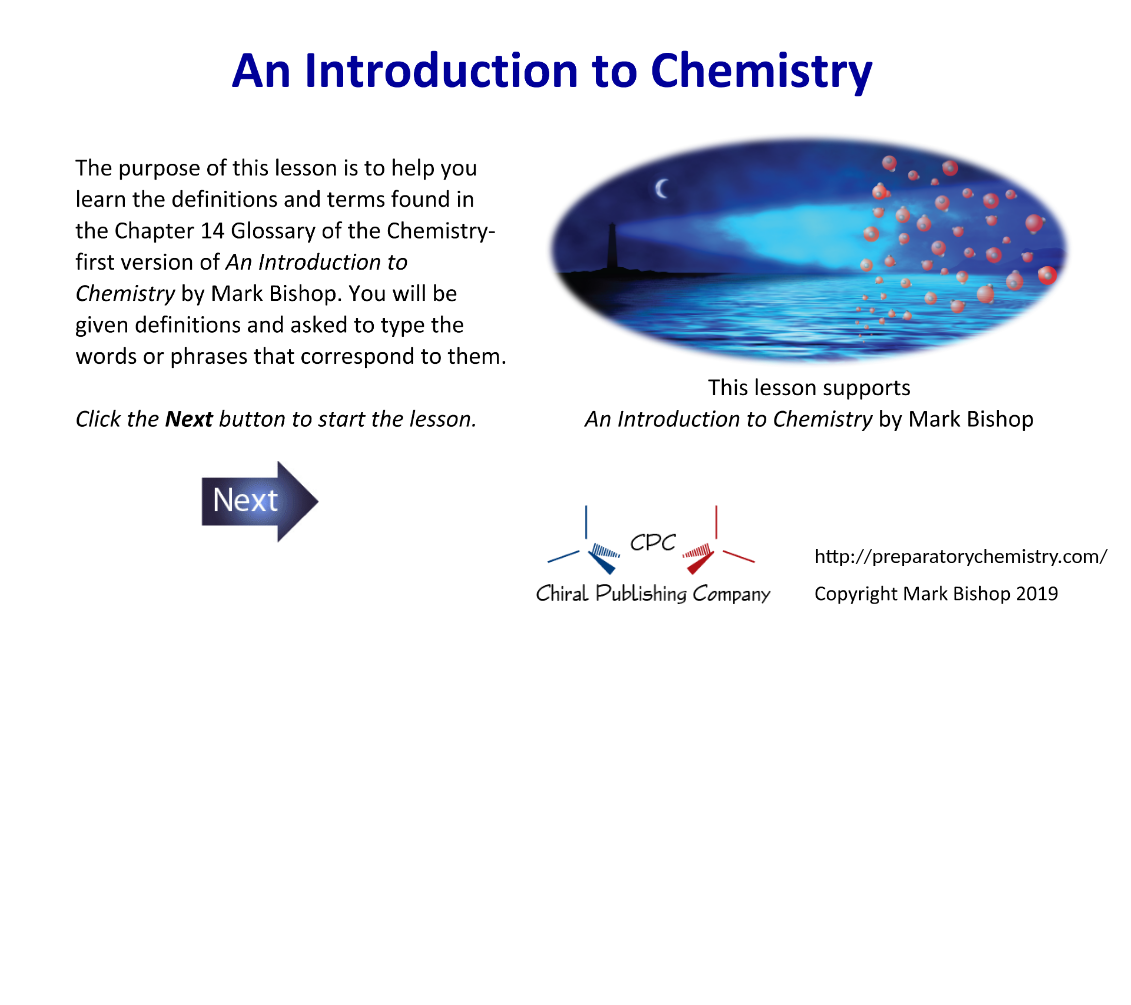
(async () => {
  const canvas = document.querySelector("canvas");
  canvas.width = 1131;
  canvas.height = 1005;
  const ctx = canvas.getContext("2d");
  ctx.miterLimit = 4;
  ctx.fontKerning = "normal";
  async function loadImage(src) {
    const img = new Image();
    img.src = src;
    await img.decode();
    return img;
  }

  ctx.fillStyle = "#ffffff";
  ctx.fillRect(0, 0, 1131, 1005);
  ctx.drawImage(await loadImage("img/1.png"), 75, 50, 1033, 554);
})();
